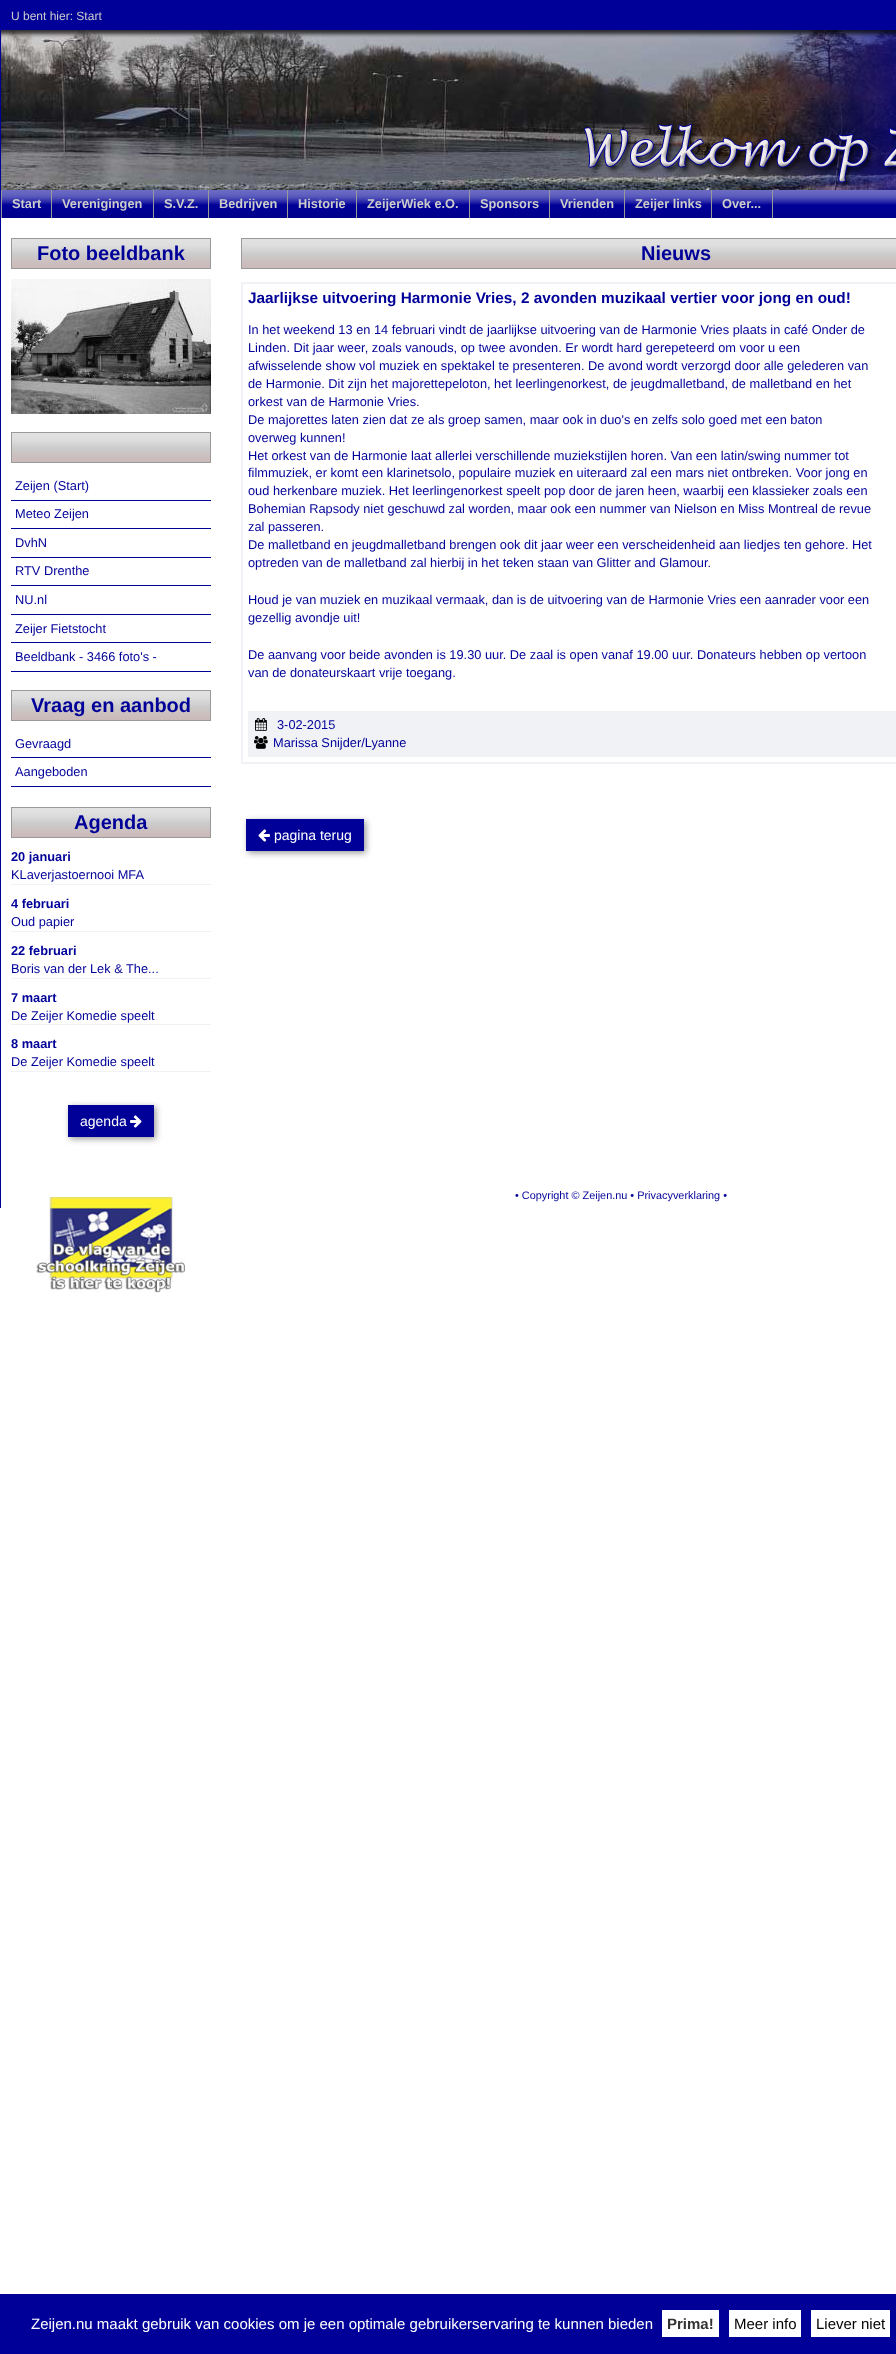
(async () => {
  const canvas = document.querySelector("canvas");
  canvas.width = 896;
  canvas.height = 2354;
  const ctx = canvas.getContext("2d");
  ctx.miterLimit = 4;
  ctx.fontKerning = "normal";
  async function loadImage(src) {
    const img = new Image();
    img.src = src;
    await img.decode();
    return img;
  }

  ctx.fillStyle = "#ffffff";
  ctx.fillRect(0, 0, 896, 2354);
  ctx.fillStyle = "#000099";
  ctx.fillRect(0, 0, 1, 1208);
  ctx.drawImage(await loadImage("img/2.png"), 1, 30, 895, 160);
  ctx.drawImage(await loadImage("img/3.png"), 583, 30, 313, 160);
  ctx.drawImage(await loadImage("img/1.png"), 1, 0, 895, 38);
  ctx.drawImage(await loadImage("img/4.png"), 2, 190, 894, 28);
  for (const [x, y, w, h, color] of [
    [1, 190, 1, 28, "#999999"],
    [51, 190, 1, 28, "#999999"],
    [153, 190, 1, 28, "#999999"],
    [208, 190, 1, 28, "#999999"],
    [287, 190, 1, 28, "#999999"],
    [356, 190, 1, 28, "#999999"],
    [469, 190, 1, 28, "#999999"],
    [549, 190, 1, 28, "#999999"],
    [624, 190, 1, 28, "#999999"],
    [711, 190, 1, 28, "#999999"],
    [772, 190, 1, 28, "#999999"],
  ]) {
    ctx.fillStyle = color;
    ctx.fillRect(x, y, w, h);
  }
  ctx.drawImage(await loadImage("img/5.png"), 12, 239, 198, 29);
  ctx.strokeStyle = "#999999";
  ctx.strokeRect(11.5, 238.5, 199, 30);
  ctx.drawImage(await loadImage("img/6.png"), 11, 279, 200, 135);
  ctx.drawImage(await loadImage("img/5.png"), 12, 433, 198, 29);
  ctx.strokeRect(11.5, 432.5, 199, 30);
  for (const [x, y, w, h, color] of [
    [11, 500, 200, 1, "#000099"],
    [11, 528, 200, 1, "#000099"],
    [11, 557, 200, 1, "#000099"],
    [11, 585, 200, 1, "#000099"],
    [11, 614, 200, 1, "#000099"],
    [11, 642, 200, 1, "#000099"],
    [11, 671, 200, 1, "#000099"],
  ]) {
    ctx.fillStyle = color;
    ctx.fillRect(x, y, w, h);
  }
  ctx.drawImage(await loadImage("img/5.png"), 12, 691, 198, 29);
  ctx.strokeRect(11.5, 690.5, 199, 30);
  ctx.fillRect(11, 757, 200, 1);
  ctx.fillRect(11, 786, 200, 1);
  ctx.drawImage(await loadImage("img/5.png"), 12, 808, 198, 29);
  ctx.strokeRect(11.5, 807.5, 199, 30);
  for (const [x, y, w, h, color] of [
    [11, 884, 200, 1, "#f0f2f5"],
    [11, 931, 200, 1, "#f0f2f5"],
    [11, 978, 200, 1, "#f0f2f5"],
    [11, 1024, 200, 1, "#f0f2f5"],
    [11, 1071, 200, 1, "#f0f2f5"],
  ]) {
    ctx.fillStyle = color;
    ctx.fillRect(x, y, w, h);
  }
  ctx.fillStyle = "#999999";
  ctx.filter = "blur(3px)";
  ctx.beginPath();
  ctx.rect(70, 1107, 86, 32);
  ctx.fill();
  ctx.filter = "none";
  ctx.fillStyle = "#000099";
  ctx.fillRect(68, 1105, 86, 32);
  ctx.drawImage(await loadImage("img/7.png"), 130, 1115, 12, 13);
  ctx.drawImage(await loadImage("img/8.png"), 36, 1197, 149, 96);
  ctx.drawImage(await loadImage("img/9.png"), 242, 239, 654, 29);
  ctx.strokeRect(241.5, 238.5, 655, 30);
  ctx.strokeStyle = "#f0f2f5";
  ctx.lineWidth = 2;
  ctx.strokeRect(242, 283, 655, 480);
  ctx.fillStyle = "#f0f2f5";
  ctx.fillRect(248, 711, 648, 46);
  ctx.drawImage(await loadImage("img/10.png"), 255, 718, 12, 13);
  ctx.drawImage(await loadImage("img/11.png"), 254, 736, 14, 13);
  ctx.fillStyle = "#999999";
  ctx.filter = "blur(3px)";
  ctx.beginPath();
  ctx.rect(248, 821, 118, 32);
  ctx.fill();
  ctx.filter = "none";
  ctx.fillStyle = "#000099";
  ctx.fillRect(246, 819, 118, 32);
  ctx.drawImage(await loadImage("img/12.png"), 258, 829, 12, 13);
  for (const [x, y, w, h, color] of [
    [0, 2294, 896, 60, "#000099"],
    [662, 2310, 57, 27, "#ffffff"],
    [729, 2310, 72, 27, "#ffffff"],
    [811, 2310, 79, 27, "#ffffff"],
  ]) {
    ctx.fillStyle = color;
    ctx.fillRect(x, y, w, h);
  }
  ctx.font = "12px Liberation Sans";
  ctx.fillStyle = "#cccccc";
  ctx.fillText("U bent hier: Start", 11, 20);
  ctx.font = "bold 12.8px Liberation Sans";
  for (const [text, x, y] of [
    ["Start", 12, 208],
    ["Verenigingen", 62, 208],
    ["S.V.Z.", 164, 208],
    ["Bedrijven", 219, 208],
    ["Historie", 298, 208],
    ["ZeijerWiek e.O.", 367, 208],
    ["Sponsors", 480, 208],
    ["Vrienden", 560, 208],
    ["Zeijer links", 635, 208],
    ["Over...", 722, 208],
  ]) {
    ctx.fillText(text, x, y);
  }
  ctx.font = "bold 20px Liberation Sans";
  ctx.fillStyle = "#000099";
  ctx.fillText("Foto beeldbank", 37, 260);
  ctx.font = "12.8px Liberation Sans";
  for (const [text, x, y] of [
    ["Zeijen (Start)", 15, 490],
    ["Meteo Zeijen", 15, 518],
    ["DvhN", 15, 547],
    ["RTV Drenthe", 15, 575],
    ["NU.nl", 15, 604],
    ["Zeijer Fietstocht", 15, 633],
    ["Beeldbank - 3466 foto's -", 15, 661],
  ]) {
    ctx.fillText(text, x, y);
  }
  ctx.font = "bold 20px Liberation Sans";
  ctx.fillText("Vraag en aanbod", 31, 712);
  ctx.font = "12.8px Liberation Sans";
  ctx.fillText("Gevraagd", 15, 748);
  ctx.fillText("Aangeboden", 15, 776);
  ctx.font = "bold 20px Liberation Sans";
  ctx.fillText("Agenda", 74, 829);
  ctx.font = "bold 12.8px Liberation Sans";
  ctx.fillText("20 januari", 11, 861);
  ctx.font = "12.8px Liberation Sans";
  ctx.fillText("KLaverjastoernooi MFA", 11, 879);
  ctx.font = "bold 12.8px Liberation Sans";
  ctx.fillText("4 februari", 11, 908);
  ctx.font = "12.8px Liberation Sans";
  ctx.fillText("Oud papier", 11, 926);
  ctx.font = "bold 12.8px Liberation Sans";
  ctx.fillText("22 februari", 11, 955);
  ctx.font = "12.8px Liberation Sans";
  ctx.fillText("Boris van der Lek & The...", 11, 973);
  ctx.font = "bold 12.8px Liberation Sans";
  ctx.fillText("7 maart", 11, 1002);
  ctx.font = "12.8px Liberation Sans";
  ctx.fillText("De Zeijer Komedie speelt", 11, 1020);
  ctx.font = "bold 12.8px Liberation Sans";
  ctx.fillText("8 maart", 11, 1048);
  ctx.font = "12.8px Liberation Sans";
  ctx.fillText("De Zeijer Komedie speelt", 11, 1066);
  ctx.font = "14px Liberation Sans";
  ctx.fillStyle = "#ffffff";
  ctx.fillText("agenda", 80, 1126);
  ctx.font = "bold 20px Liberation Sans";
  ctx.fillStyle = "#000099";
  ctx.fillText("Nieuws", 641, 260);
  ctx.font = "bold 15.35px Liberation Sans";
  ctx.fillText("Jaarlijkse uitvoering Harmonie Vries, 2 avonden muzikaal vertier voor jong en oud!", 248, 303);
  ctx.font = "12.8px Liberation Sans";
  for (const [text, x, y] of [
    ["In het weekend 13 en 14 februari vindt de jaarlijkse uitvoering van de Harmonie Vries plaats in café Onder de", 248, 334],
    ["Linden. Dit jaar weer, zoals vanouds, op twee avonden. Er wordt hard gerepeteerd om voor u een", 248, 352],
    ["afwisselende show vol muziek en spektakel te presenteren. De avond wordt verzorgd door alle gelederen van", 248, 370],
    ["de Harmonie. Dit zijn het majorettepeloton, het leerlingenorkest, de jeugdmalletband, de malletband en het", 248, 388],
    ["orkest van de Harmonie Vries.", 248, 406],
    ["De majorettes laten zien dat ze als groep samen, maar ook in duo's en zelfs solo goed met een baton", 248, 424],
    ["overweg kunnen!", 248, 442],
    ["Het orkest van de Harmonie laat allerlei verschillende muziekstijlen horen. Van een latin/swing nummer tot", 248, 460],
    ["filmmuziek, er komt een klarinetsolo, populaire muziek en uiteraard zal een mars niet ontbreken. Voor jong en", 248, 477],
    ["oud herkenbare muziek. Het leerlingenorkest speelt pop door de jaren heen, waarbij een klassieker zoals een", 248, 495],
    ["Bohemian Rapsody niet geschuwd zal worden, maar ook een nummer van Nielson en Miss Montreal de revue", 248, 513],
    ["zal passeren.", 248, 531],
    ["De malletband en jeugdmalletband brengen ook dit jaar weer een verscheidenheid aan liedjes ten gehore. Het", 248, 549],
    ["optreden van de malletband zal hierbij in het teken staan van Glitter and Glamour.", 248, 567],
    ["Houd je van muziek en muzikaal vermaak, dan is de uitvoering van de Harmonie Vries een aanrader voor een", 248, 604],
    ["gezellig avondje uit!", 248, 622],
    ["De aanvang voor beide avonden is 19.30 uur. De zaal is open vanaf 19.00 uur. Donateurs hebben op vertoon", 248, 659],
    ["van de donateurskaart vrije toegang.", 248, 677],
    ["3-02-2015", 277, 729],
    ["Marissa Snijder/Lyanne", 273, 747],
  ]) {
    ctx.fillText(text, x, y);
  }
  ctx.font = "14px Liberation Sans";
  ctx.fillStyle = "#ffffff";
  ctx.fillText("pagina terug", 274, 840);
  ctx.font = "10.9px Liberation Sans";
  ctx.fillStyle = "#000099";
  ctx.fillText("• Copyright © Zeijen.nu • Privacyverklaring •", 515, 1199);
  ctx.font = "15px Liberation Sans";
  ctx.fillStyle = "#ffffff";
  ctx.fillText("Zeijen.nu maakt gebruik van cookies om je een optimale gebruikerservaring te kunnen bieden", 31, 2329);
  ctx.font = "bold 15px Liberation Sans";
  ctx.fillStyle = "#333333";
  ctx.fillText("Prima!", 667, 2329);
  ctx.font = "15px Liberation Sans";
  ctx.fillStyle = "#000000";
  ctx.fillText("Meer info", 734, 2329);
  ctx.fillText("Liever niet", 816, 2329);
})();
